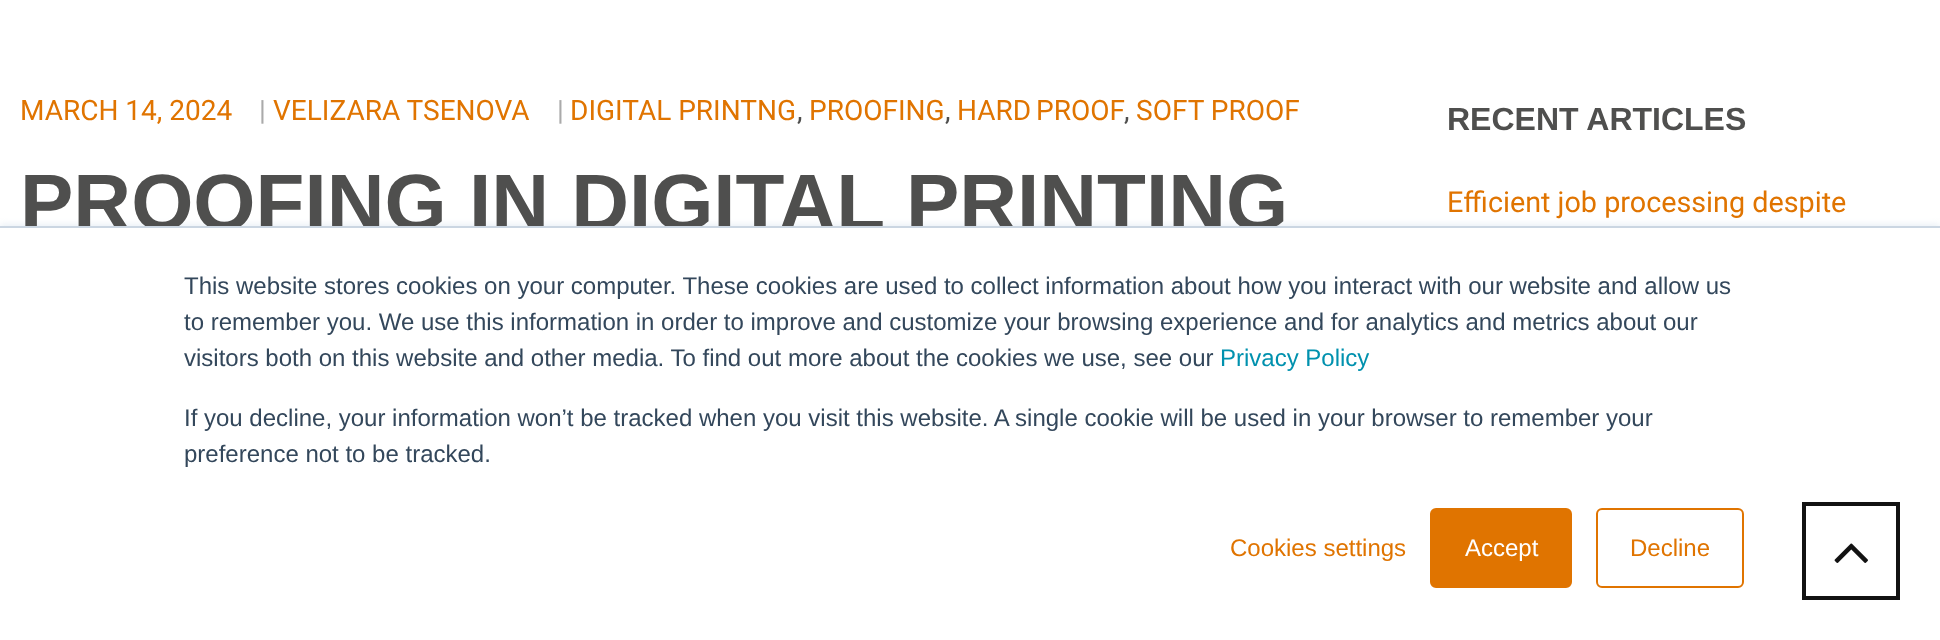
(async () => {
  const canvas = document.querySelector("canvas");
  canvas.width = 1940;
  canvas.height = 640;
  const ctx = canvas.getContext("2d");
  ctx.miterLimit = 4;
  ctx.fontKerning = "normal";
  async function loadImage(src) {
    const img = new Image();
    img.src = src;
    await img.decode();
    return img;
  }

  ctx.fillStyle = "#ffffff";
  ctx.fillRect(0, 0, 1940, 640);
  ctx.fillStyle = "#eaf0f6";
  ctx.filter = "blur(3px)";
  ctx.beginPath();
  ctx.rect(0, 224, 1940, 414);
  ctx.fill();
  ctx.filter = "none";
  ctx.font = "28px Roboto";
  ctx.fillStyle = "#e07400";
  ctx.fillText("MARCH 14, 2024", 20, 120);
  ctx.fillStyle = "#aaaaaa";
  ctx.fillText("|", 259, 120);
  ctx.fillStyle = "#e07400";
  ctx.fillText("VELIZARA TSENOVA", 273, 120);
  ctx.fillStyle = "#aaaaaa";
  ctx.fillText("|", 557, 120);
  ctx.fillStyle = "#e07400";
  ctx.fillText("DIGITAL PRINTNG", 570, 120);
  ctx.fillStyle = "#4f4f4e";
  ctx.fillText(",", 797, 120);
  ctx.fillStyle = "#e07400";
  ctx.fillText("PROOFING", 809, 120);
  ctx.fillStyle = "#4f4f4e";
  ctx.fillText(",", 945, 120);
  ctx.wordSpacing = "-2px";
  ctx.fillStyle = "#e07400";
  ctx.fillText("HARD PROOF", 957, 120);
  ctx.wordSpacing = "0px";
  ctx.fillStyle = "#4f4f4e";
  ctx.fillText(",", 1124, 120);
  ctx.fillStyle = "#e07400";
  ctx.fillText("SOFT PROOF", 1136, 120);
  ctx.font = "bold 80px Liberation Sans";
  ctx.fillStyle = "#4f4f4e";
  ctx.fillText("PROOFING IN DIGITAL PRINTING", 20, 230);
  ctx.font = "bold 32px Liberation Sans";
  ctx.fillText("RECENT ARTICLES", 1447, 130);
  ctx.font = "28.75px Roboto";
  ctx.fillStyle = "#e07400";
  ctx.fillText("Efficient job processing despite", 1447, 212);
  ctx.fillStyle = "#ffffff";
  ctx.fillRect(0, 228, 1940, 412);
  ctx.strokeStyle = "#121212";
  ctx.lineWidth = 4;
  ctx.strokeRect(1804, 504, 94, 94);
  ctx.drawImage(await loadImage("img/1.png"), 1834, 543, 34, 20);
  ctx.fillStyle = "#cbd6e2";
  ctx.fillRect(0, 226, 1940, 2);
  ctx.font = "24px Liberation Sans";
  ctx.fillStyle = "#33475b";
  for (const [text, x, y] of [
    ["This website stores cookies on your computer. These cookies are used to collect information about how you interact with our website and allow us", 184, 294],
    ["to remember you. We use this information in order to improve and customize your browsing experience and for analytics and metrics about our", 184, 330],
    ["visitors both on this website and other media. To find out more about the cookies we use, see our", 184, 366],
  ]) {
    ctx.fillText(text, x, y);
  }
  ctx.fillStyle = "#0091ae";
  ctx.fillText("Privacy Policy", 1220, 366);
  ctx.fillStyle = "#33475b";
  ctx.fillText("If you decline, your information won’t be tracked when you visit this website. A single cookie will be used in your browser to remember your", 184, 426);
  ctx.fillText("preference not to be tracked.", 184, 462);
  ctx.fillStyle = "#e07400";
  ctx.fillText("Cookies settings", 1230, 556);
  ctx.beginPath();
  ctx.roundRect(1431, 509, 140, 78, 5);
  ctx.fill();
  ctx.strokeStyle = "#e07400";
  ctx.lineWidth = 2;
  ctx.stroke();
  ctx.fillStyle = "#ffffff";
  ctx.fillText("Accept", 1465, 556);
  ctx.beginPath();
  ctx.roundRect(1597, 509, 146, 78, 5);
  ctx.stroke();
  ctx.fillStyle = "#e07400";
  ctx.fillText("Decline", 1630, 556);
})();
